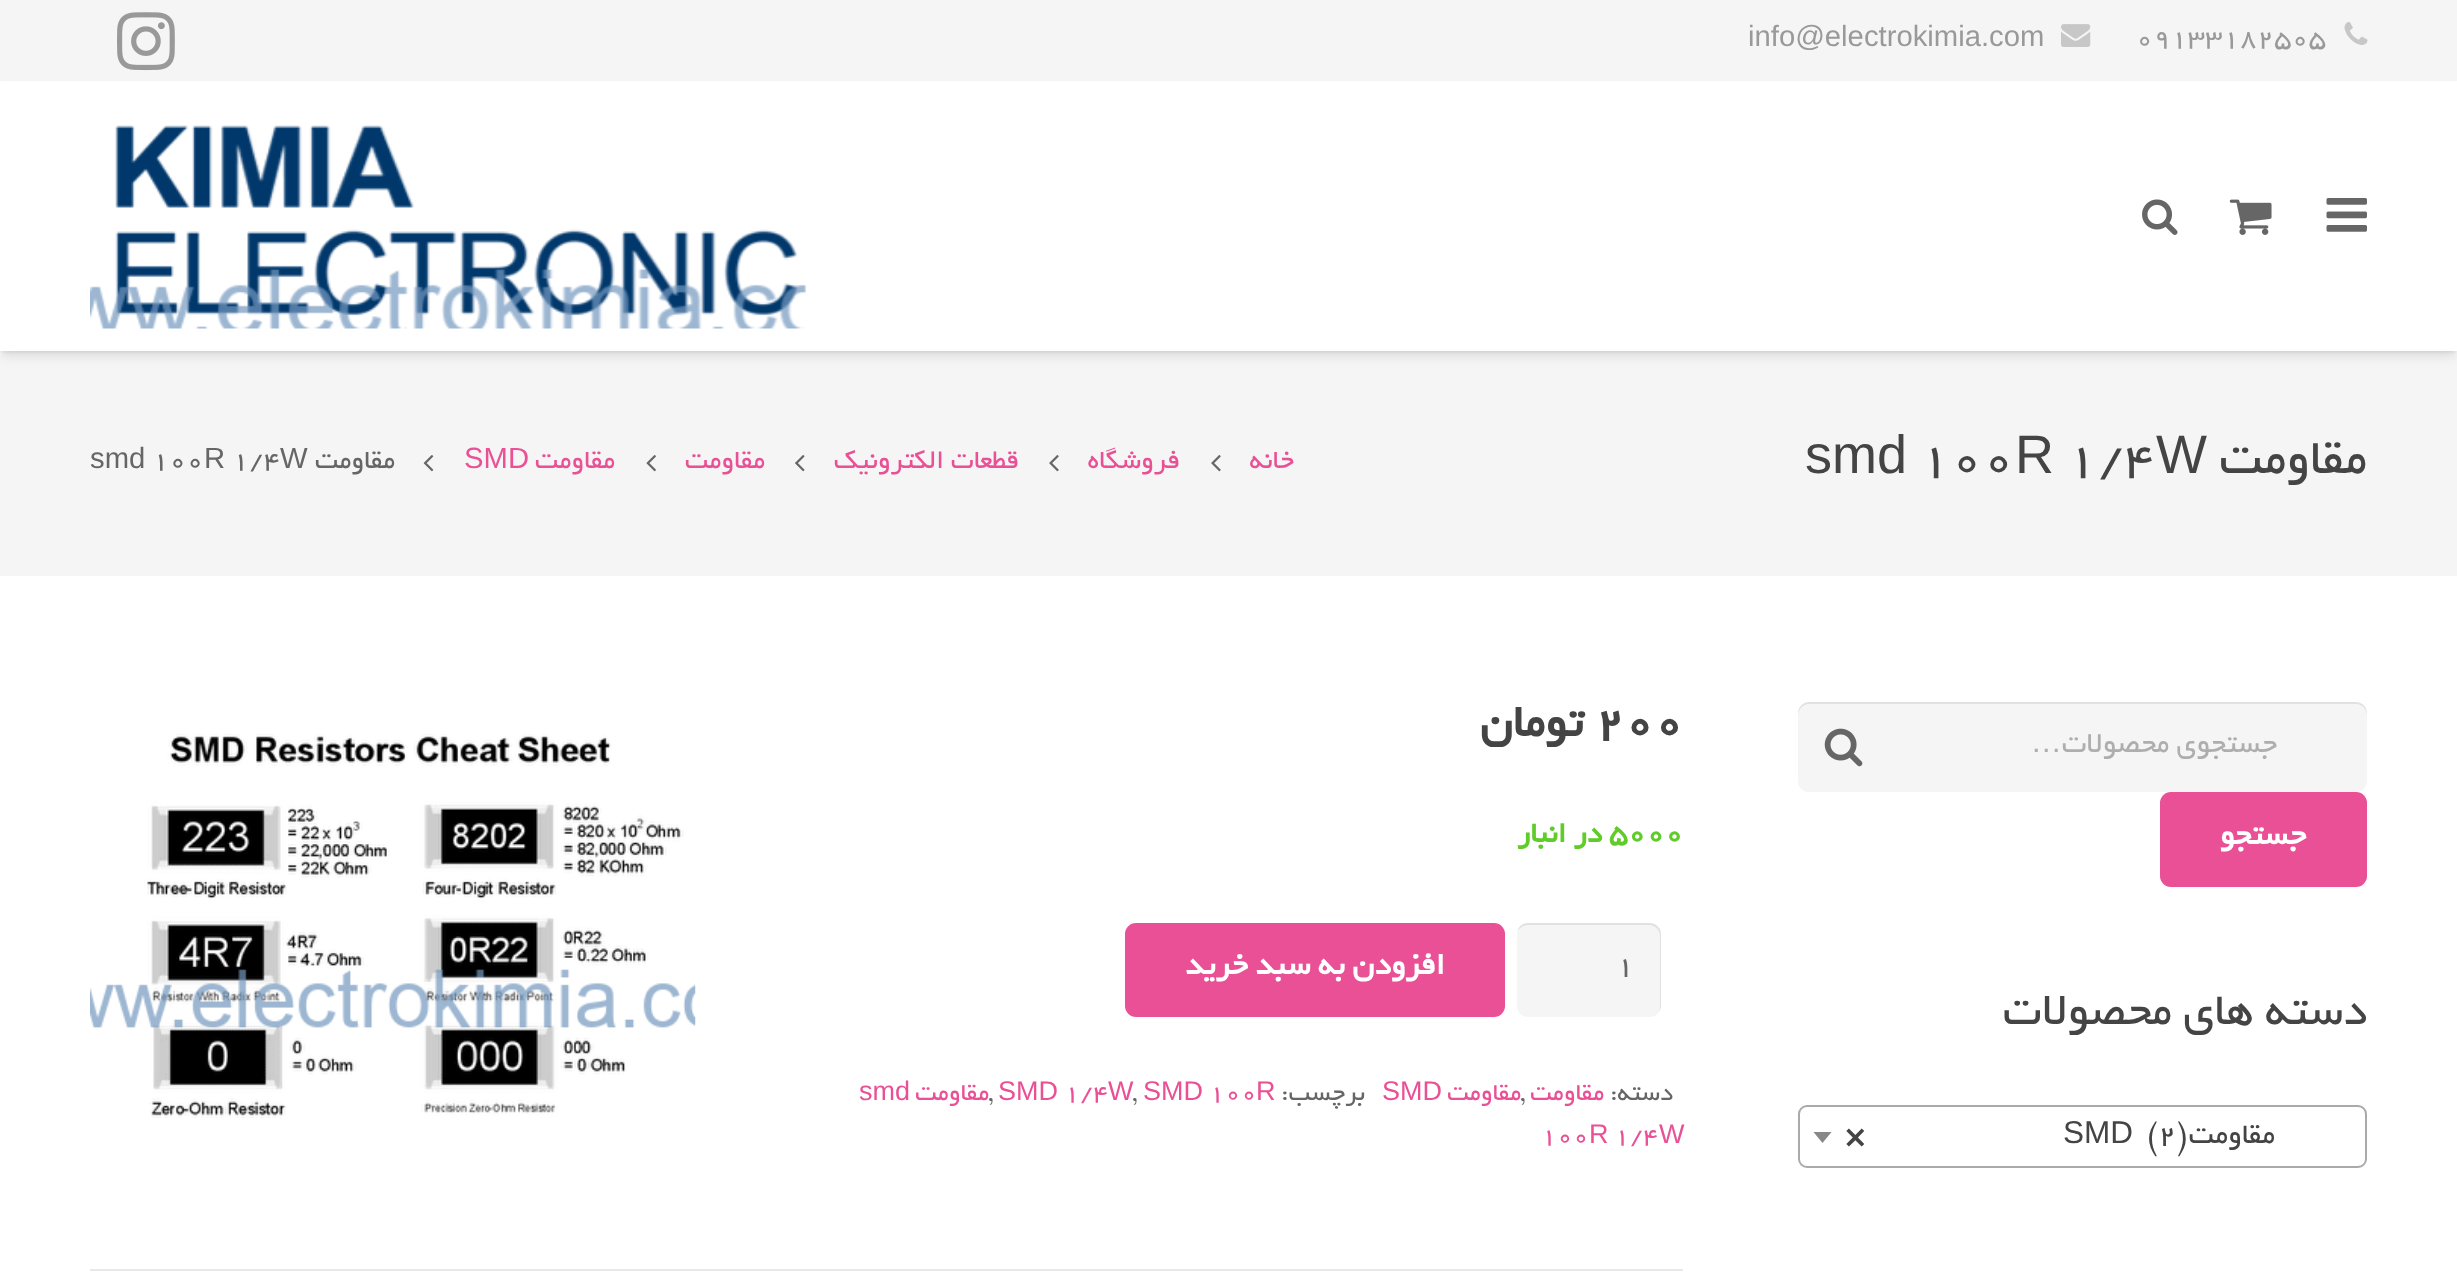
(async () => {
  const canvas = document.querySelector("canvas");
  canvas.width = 2457;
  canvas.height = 1275;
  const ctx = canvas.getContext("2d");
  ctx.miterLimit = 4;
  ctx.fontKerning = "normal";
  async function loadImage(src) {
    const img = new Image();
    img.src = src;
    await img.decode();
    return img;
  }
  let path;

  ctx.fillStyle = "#ffffff";
  ctx.fillRect(0, 0, 2457, 1275);
  ctx.fillStyle = "#f5f5f5";
  ctx.fillRect(0, 0, 2457, 576);
  ctx.drawImage(await loadImage("img/1.png"), 2344, 22, 24, 23);
  ctx.drawImage(await loadImage("img/2.png"), 2061, 24, 30, 23);
  ctx.drawImage(await loadImage("img/3.png"), 117, 12, 58, 59);
  ctx.fillStyle = "rgba(0, 0, 0, 0.05)";
  ctx.filter = "blur(1px)";
  ctx.beginPath();
  ctx.rect(2, 88, 2453, 265);
  ctx.fill();
  ctx.filter = "none";
  ctx.fillStyle = "rgba(0, 0, 0, 0.1)";
  ctx.filter = "blur(5.5px)";
  ctx.beginPath();
  ctx.rect(2, 90, 2453, 266);
  ctx.fill();
  ctx.filter = "none";
  ctx.fillStyle = "#ffffff";
  ctx.fillRect(0, 81, 2457, 270);
  ctx.drawImage(await loadImage("img/4.png"), 2326, 198, 41, 34);
  ctx.drawImage(await loadImage("img/5.png"), 2229, 199, 43, 36);
  ctx.drawImage(await loadImage("img/6.png"), 2142, 199, 36, 36);
  ctx.drawImage(await loadImage("img/7.png"), 90, 125, 716, 204);
  ctx.drawImage(await loadImage("img/8.png"), 1211, 455, 10, 17);
  ctx.drawImage(await loadImage("img/8.png"), 1049, 455, 10, 17);
  ctx.drawImage(await loadImage("img/9.png"), 795, 455, 10, 17);
  ctx.drawImage(await loadImage("img/10.png"), 646, 455, 10, 17);
  ctx.drawImage(await loadImage("img/11.png"), 423, 455, 11, 17);
  ctx.fillStyle = "#f5f5f5";
  ctx.beginPath();
  ctx.roundRect(1798, 702, 569, 90, 11);
  ctx.fill();
  ctx.fillStyle = "rgba(0, 0, 0, 0.08)";
  path = new Path2D("M1809 704H2356C2362 704 2367 709 2367 716V713C2367 707 2362 702 2356 702H1809C1803 702 1798 707 1798 713V716C1798 709 1803 704 1809 704Z");
  ctx.fill(path);
  ctx.drawImage(await loadImage("img/12.png"), 1824, 728, 39, 39);
  ctx.fillStyle = "#e95095";
  ctx.beginPath();
  ctx.roundRect(2160, 792, 207, 95, 11);
  ctx.fill();
  ctx.beginPath();
  ctx.roundRect(1799, 1106, 567, 61, 8);
  ctx.strokeStyle = "#aaaaaa";
  ctx.lineWidth = 2;
  ctx.stroke();
  ctx.fillStyle = "#888888";
  path = new Path2D("M1813.5 1132H1831.5L1822.5 1143Z");
  ctx.fill(path);
  ctx.fillStyle = "#f5f5f5";
  ctx.beginPath();
  ctx.roundRect(1517, 923, 144, 94, 11);
  ctx.fill();
  ctx.fillStyle = "rgba(0, 0, 0, 0.08)";
  path = new Path2D("M1528 925H1649C1655 925 1660 930 1660 936V1008L1659 1012C1660 1010 1661 1008 1661 1006V934C1661 928 1656 923 1650 923H1528C1523 923 1519 926 1517 931C1520 928 1524 925 1528 925Z");
  ctx.fill(path);
  ctx.fillStyle = "#e95095";
  ctx.beginPath();
  ctx.roundRect(1125, 923, 380, 94, 11);
  ctx.fill();
  ctx.drawImage(await loadImage("img/13.png"), 90, 734, 606, 384);
  ctx.fillStyle = "#e8e8e8";
  ctx.fillRect(90, 1269, 1593, 2);
  ctx.font = "29.25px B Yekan";
  ctx.fillStyle = "#999999";
  ctx.fillText("09133182505", 2136, 46);
  ctx.font = "29.25px Liberation Sans";
  ctx.fillText("info@electrokimia.com", 1748, 46);
  ctx.direction = "rtl";
  ctx.font = "54px B Yekan";
  ctx.fillStyle = "#444444";
  ctx.fillText("مقاومت", 2367, 473);
  ctx.direction = "ltr";
  ctx.font = "54px Liberation Sans";
  ctx.fillText("W", 2156, 473);
  ctx.font = "54px B Yekan";
  ctx.fillText("1/4", 2066, 473);
  ctx.font = "54px Liberation Sans";
  ctx.fillText("R", 2015, 473);
  ctx.font = "54px B Yekan";
  ctx.fillText("100", 1919, 473);
  ctx.font = "54px Liberation Sans";
  ctx.fillText("smd", 1805, 473);
  ctx.direction = "rtl";
  ctx.font = "29.25px B Yekan";
  ctx.fillStyle = "#e95095";
  for (const [text, x, y] of [
    ["خانه", 1294, 468],
    ["فروشگاه", 1180, 468],
    ["قطعات الکترونیک", 1019, 468],
    ["مقاومت", 765, 468],
    ["مقاومت", 615, 468],
  ]) {
    ctx.fillText(text, x, y);
  }
  ctx.direction = "ltr";
  ctx.font = "29.25px Liberation Sans";
  ctx.fillText("SMD", 464, 468);
  ctx.direction = "rtl";
  ctx.font = "29.25px B Yekan";
  ctx.fillStyle = "#666666";
  ctx.fillText("مقاومت", 395, 468);
  ctx.direction = "ltr";
  ctx.font = "29.25px Liberation Sans";
  ctx.fillText("W", 280, 468);
  ctx.font = "29.25px B Yekan";
  ctx.fillText("1/4", 232, 468);
  ctx.font = "29.25px Liberation Sans";
  ctx.fillText("R", 204, 468);
  ctx.font = "29.25px B Yekan";
  ctx.fillText("100", 152, 468);
  ctx.font = "29.25px Liberation Sans";
  ctx.fillText("smd", 90, 468);
  ctx.direction = "rtl";
  ctx.font = "31.5px B Yekan";
  ctx.fillStyle = "#aeaeae";
  ctx.fillText("جستجوی محصولات", 2277, 752);
  ctx.font = "31.5px Liberation Sans";
  ctx.fillText("…", 2062, 752);
  ctx.font = "bold 33.75px B Yekan";
  ctx.fillStyle = "#ffffff";
  ctx.fillText("جستجو", 2306, 844);
  ctx.font = "49.5px B Yekan";
  ctx.fillStyle = "#444444";
  ctx.fillText("دسته های محصولات", 2367, 1024);
  ctx.font = "31.5px B Yekan";
  ctx.fillText("مقاومت", 2275, 1143);
  ctx.direction = "ltr";
  ctx.fillText("(2)", 2147, 1143);
  ctx.font = "31.5px Liberation Sans";
  ctx.fillText("SMD", 2063, 1143);
  ctx.font = "bold 31.5px B Yekan";
  ctx.fillText("×", 1845, 1143);
  ctx.font = "bold 50px B Yekan";
  ctx.fillText("200", 1595, 736);
  ctx.direction = "rtl";
  ctx.fillText("تومان", 1583, 736);
  ctx.direction = "ltr";
  ctx.font = "bold 31.5px B Yekan";
  ctx.fillStyle = "#5fcc29";
  ctx.fillText("5000", 1609, 842);
  ctx.direction = "rtl";
  ctx.fillText("در انبار", 1602, 842);
  ctx.direction = "ltr";
  ctx.font = "31.5px B Yekan";
  ctx.fillStyle = "#666666";
  ctx.fillText("1", 1616, 974);
  ctx.direction = "rtl";
  ctx.font = "bold 33.75px B Yekan";
  ctx.fillStyle = "#ffffff";
  ctx.fillText("افزودن به سبد خرید", 1445, 974);
  ctx.font = "27px B Yekan";
  ctx.fillStyle = "#666666";
  ctx.fillText("دسته:", 1673, 1100);
  ctx.fillStyle = "#e95095";
  ctx.fillText("مقاومت", 1604, 1100);
  ctx.direction = "ltr";
  ctx.fillStyle = "#666666";
  ctx.fillText(",", 1521, 1100);
  ctx.direction = "rtl";
  ctx.fillStyle = "#e95095";
  ctx.fillText("مقاومت", 1521, 1100);
  ctx.direction = "ltr";
  ctx.font = "27px Liberation Sans";
  ctx.fillText("SMD", 1382, 1100);
  ctx.direction = "rtl";
  ctx.font = "27px B Yekan";
  ctx.fillStyle = "#666666";
  ctx.fillText("برچسب:", 1365, 1100);
  ctx.direction = "ltr";
  ctx.font = "27px Liberation Sans";
  ctx.fillStyle = "#e95095";
  ctx.fillText("R", 1256, 1100);
  ctx.font = "27px B Yekan";
  ctx.fillText("100", 1209, 1100);
  ctx.font = "27px Liberation Sans";
  ctx.fillText("SMD", 1143, 1100);
  ctx.font = "27px B Yekan";
  ctx.fillStyle = "#666666";
  ctx.fillText(",", 1133, 1100);
  ctx.font = "27px Liberation Sans";
  ctx.fillStyle = "#e95095";
  ctx.fillText("W", 1108, 1100);
  ctx.font = "27px B Yekan";
  ctx.fillText("1/4", 1064, 1100);
  ctx.font = "27px Liberation Sans";
  ctx.fillText("SMD", 998, 1100);
  ctx.font = "27px B Yekan";
  ctx.fillStyle = "#666666";
  ctx.fillText(",", 989, 1100);
  ctx.direction = "rtl";
  ctx.fillStyle = "#e95095";
  ctx.fillText("مقاومت", 989, 1100);
  ctx.direction = "ltr";
  ctx.font = "27px Liberation Sans";
  ctx.fillText("smd", 859, 1100);
  ctx.fillText("W", 1659, 1143);
  ctx.font = "27px B Yekan";
  ctx.fillText("1/4", 1614, 1143);
  ctx.font = "27px Liberation Sans";
  ctx.fillText("R", 1589, 1143);
  ctx.font = "27px B Yekan";
  ctx.fillText("100", 1541, 1143);
})();
